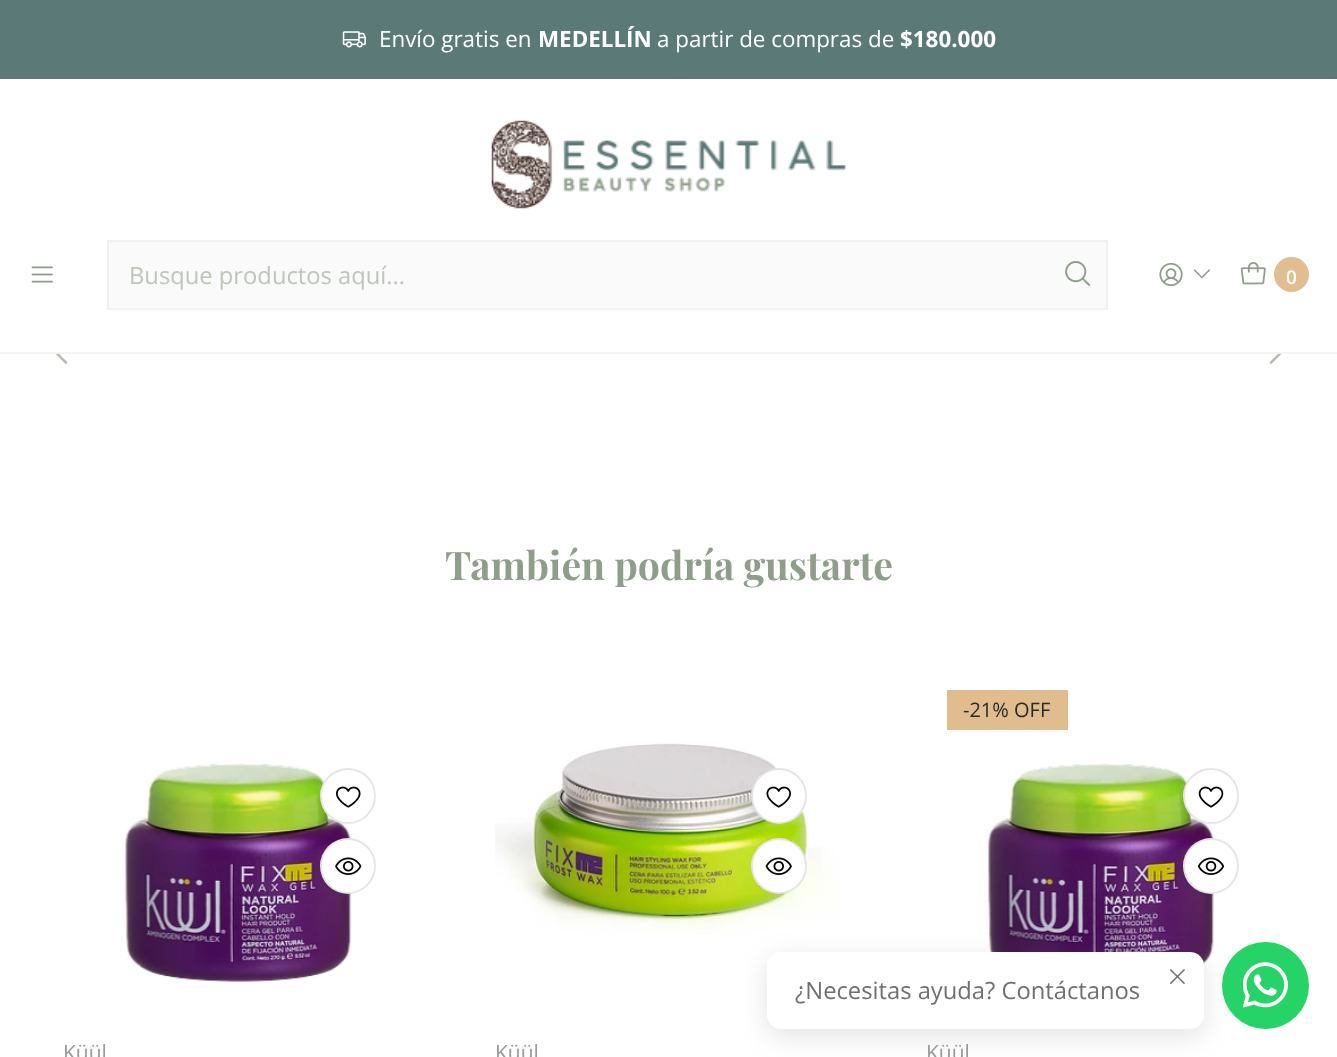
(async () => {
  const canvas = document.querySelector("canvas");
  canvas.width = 1337;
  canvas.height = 1057;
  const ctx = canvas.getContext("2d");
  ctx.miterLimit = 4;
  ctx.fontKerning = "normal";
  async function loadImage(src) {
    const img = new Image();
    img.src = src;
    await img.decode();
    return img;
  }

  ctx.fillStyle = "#ffffff";
  ctx.fillRect(0, 0, 1337, 1057);
  ctx.fillStyle = "#5b7977";
  ctx.fillRect(0, 0, 1337, 79);
  ctx.drawImage(await loadImage("img/1.png"), 342, 31, 24, 17);
  ctx.fillStyle = "#f4f5f3";
  ctx.fillRect(0, 352, 1337, 2);
  ctx.drawImage(await loadImage("img/2.png"), 491, 120, 355, 89);
  ctx.drawImage(await loadImage("img/3.png"), 31, 266, 22, 17);
  ctx.fillStyle = "#f9faf9";
  ctx.beginPath();
  ctx.rect(108, 241, 999, 68);
  ctx.fill();
  ctx.strokeStyle = "#eef1ee";
  ctx.lineWidth = 2;
  ctx.stroke();
  ctx.drawImage(await loadImage("img/4.png"), 1065, 261, 26, 25);
  ctx.drawImage(await loadImage("img/5.png"), 1159, 262, 24, 25);
  ctx.drawImage(await loadImage("img/6.png"), 1193, 269, 17, 10);
  ctx.drawImage(await loadImage("img/7.png"), 1240, 262, 26, 23);
  ctx.fillStyle = "#e1bd8f";
  ctx.beginPath();
  ctx.arc(1291.5, 274.5, 17.5, 0, Math.PI * 2);
  ctx.fill();
  ctx.drawImage(await loadImage("img/8.png"), 55, 354, 13, 10);
  ctx.drawImage(await loadImage("img/9.png"), 1269, 354, 13, 10);
  ctx.drawImage(await loadImage("img/10.png"), 125, 763, 227, 219);
  ctx.fillStyle = "#ffffff";
  ctx.beginPath();
  ctx.arc(348, 796, 28, 0, Math.PI * 2);
  ctx.fill();
  ctx.beginPath();
  ctx.arc(348, 796, 27, 0, Math.PI * 2);
  ctx.strokeStyle = "rgba(0, 0, 0, 0.1)";
  ctx.stroke();
  ctx.drawImage(await loadImage("img/11.png"), 336, 786, 25, 22);
  ctx.beginPath();
  ctx.arc(348, 866, 28, 0, Math.PI * 2);
  ctx.fill();
  ctx.beginPath();
  ctx.arc(348, 866, 27, 0, Math.PI * 2);
  ctx.stroke();
  ctx.drawImage(await loadImage("img/12.png"), 335, 857, 27, 18);
  ctx.drawImage(await loadImage("img/13.png"), 495, 743, 344, 192);
  ctx.beginPath();
  ctx.arc(779, 796, 28, 0, Math.PI * 2);
  ctx.fill();
  ctx.beginPath();
  ctx.arc(779, 796, 27, 0, Math.PI * 2);
  ctx.stroke();
  ctx.drawImage(await loadImage("img/14.png"), 766, 786, 25, 22);
  ctx.beginPath();
  ctx.arc(779, 866, 28, 0, Math.PI * 2);
  ctx.fill();
  ctx.beginPath();
  ctx.arc(779, 866, 27, 0, Math.PI * 2);
  ctx.stroke();
  ctx.drawImage(await loadImage("img/15.png"), 765, 857, 27, 18);
  ctx.fillStyle = "#e1bc8f";
  ctx.fillRect(947, 690, 121, 40);
  ctx.drawImage(await loadImage("img/16.png"), 988, 763, 227, 202);
  ctx.fillStyle = "#ffffff";
  ctx.beginPath();
  ctx.arc(1211, 796, 28, 0, Math.PI * 2);
  ctx.fill();
  ctx.beginPath();
  ctx.arc(1211, 796, 27, 0, Math.PI * 2);
  ctx.stroke();
  ctx.drawImage(await loadImage("img/17.png"), 1198, 786, 26, 22);
  ctx.beginPath();
  ctx.arc(1211, 866, 28, 0, Math.PI * 2);
  ctx.fill();
  ctx.beginPath();
  ctx.arc(1211, 866, 27, 0, Math.PI * 2);
  ctx.stroke();
  ctx.drawImage(await loadImage("img/18.png"), 1197, 857, 28, 18);
  ctx.fillStyle = "rgba(111, 111, 110, 0.2)";
  ctx.filter = "blur(13px)";
  ctx.beginPath();
  ctx.roundRect(767, 959, 437, 77, 14);
  ctx.fill();
  ctx.filter = "none";
  ctx.fillStyle = "#ffffff";
  ctx.beginPath();
  ctx.roundRect(767, 952, 437, 77, 14);
  ctx.fill();
  ctx.drawImage(await loadImage("img/19.png"), 1170, 969, 15, 15);
  ctx.fillStyle = "#25d366";
  ctx.beginPath();
  ctx.arc(1265.5, 985.5, 43.5, 0, Math.PI * 2);
  ctx.fill();
  ctx.drawImage(await loadImage("img/20.png"), 1243, 962, 45, 46);
  ctx.font = "22.4px Open Sans";
  ctx.fillStyle = "#ffffff";
  ctx.fillText("Envío gratis en", 379, 47);
  ctx.font = "bold 22.4px Open Sans";
  ctx.fillText("MEDELLÍN", 538, 47);
  ctx.font = "22.4px Open Sans";
  ctx.fillText("a partir de compras de", 657, 47);
  ctx.font = "bold 22.4px Open Sans";
  ctx.fillText("$180.000", 900, 47);
  ctx.font = "23.75px Open Sans";
  ctx.fillStyle = "#bec6bb";
  ctx.fillText("Busque productos aquí...", 129, 284);
  ctx.font = "600 19px Open Sans";
  ctx.fillStyle = "#ffffff";
  ctx.fillText("0", 1286, 284);
  ctx.font = "bold 39.25px Playfair Display";
  ctx.fillStyle = "#8f9e8b";
  ctx.fillText("También podría gustarte", 445, 580);
  ctx.font = "21px Open Sans";
  ctx.fillStyle = "#9b9a9a";
  ctx.fillText("Küül", 63, 1060);
  ctx.fillText("Küül", 495, 1060);
  ctx.font = "20px Open Sans";
  ctx.fillStyle = "#292929";
  ctx.fillText("-21% OFF", 963, 717);
  ctx.font = "21px Open Sans";
  ctx.fillStyle = "#9b9a9a";
  ctx.fillText("Küül", 926, 1060);
  ctx.font = "23.75px Open Sans";
  ctx.fillStyle = "#6f6f6e";
  ctx.fillText("¿Necesitas ayuda? Contáctanos", 795, 999);
})();
